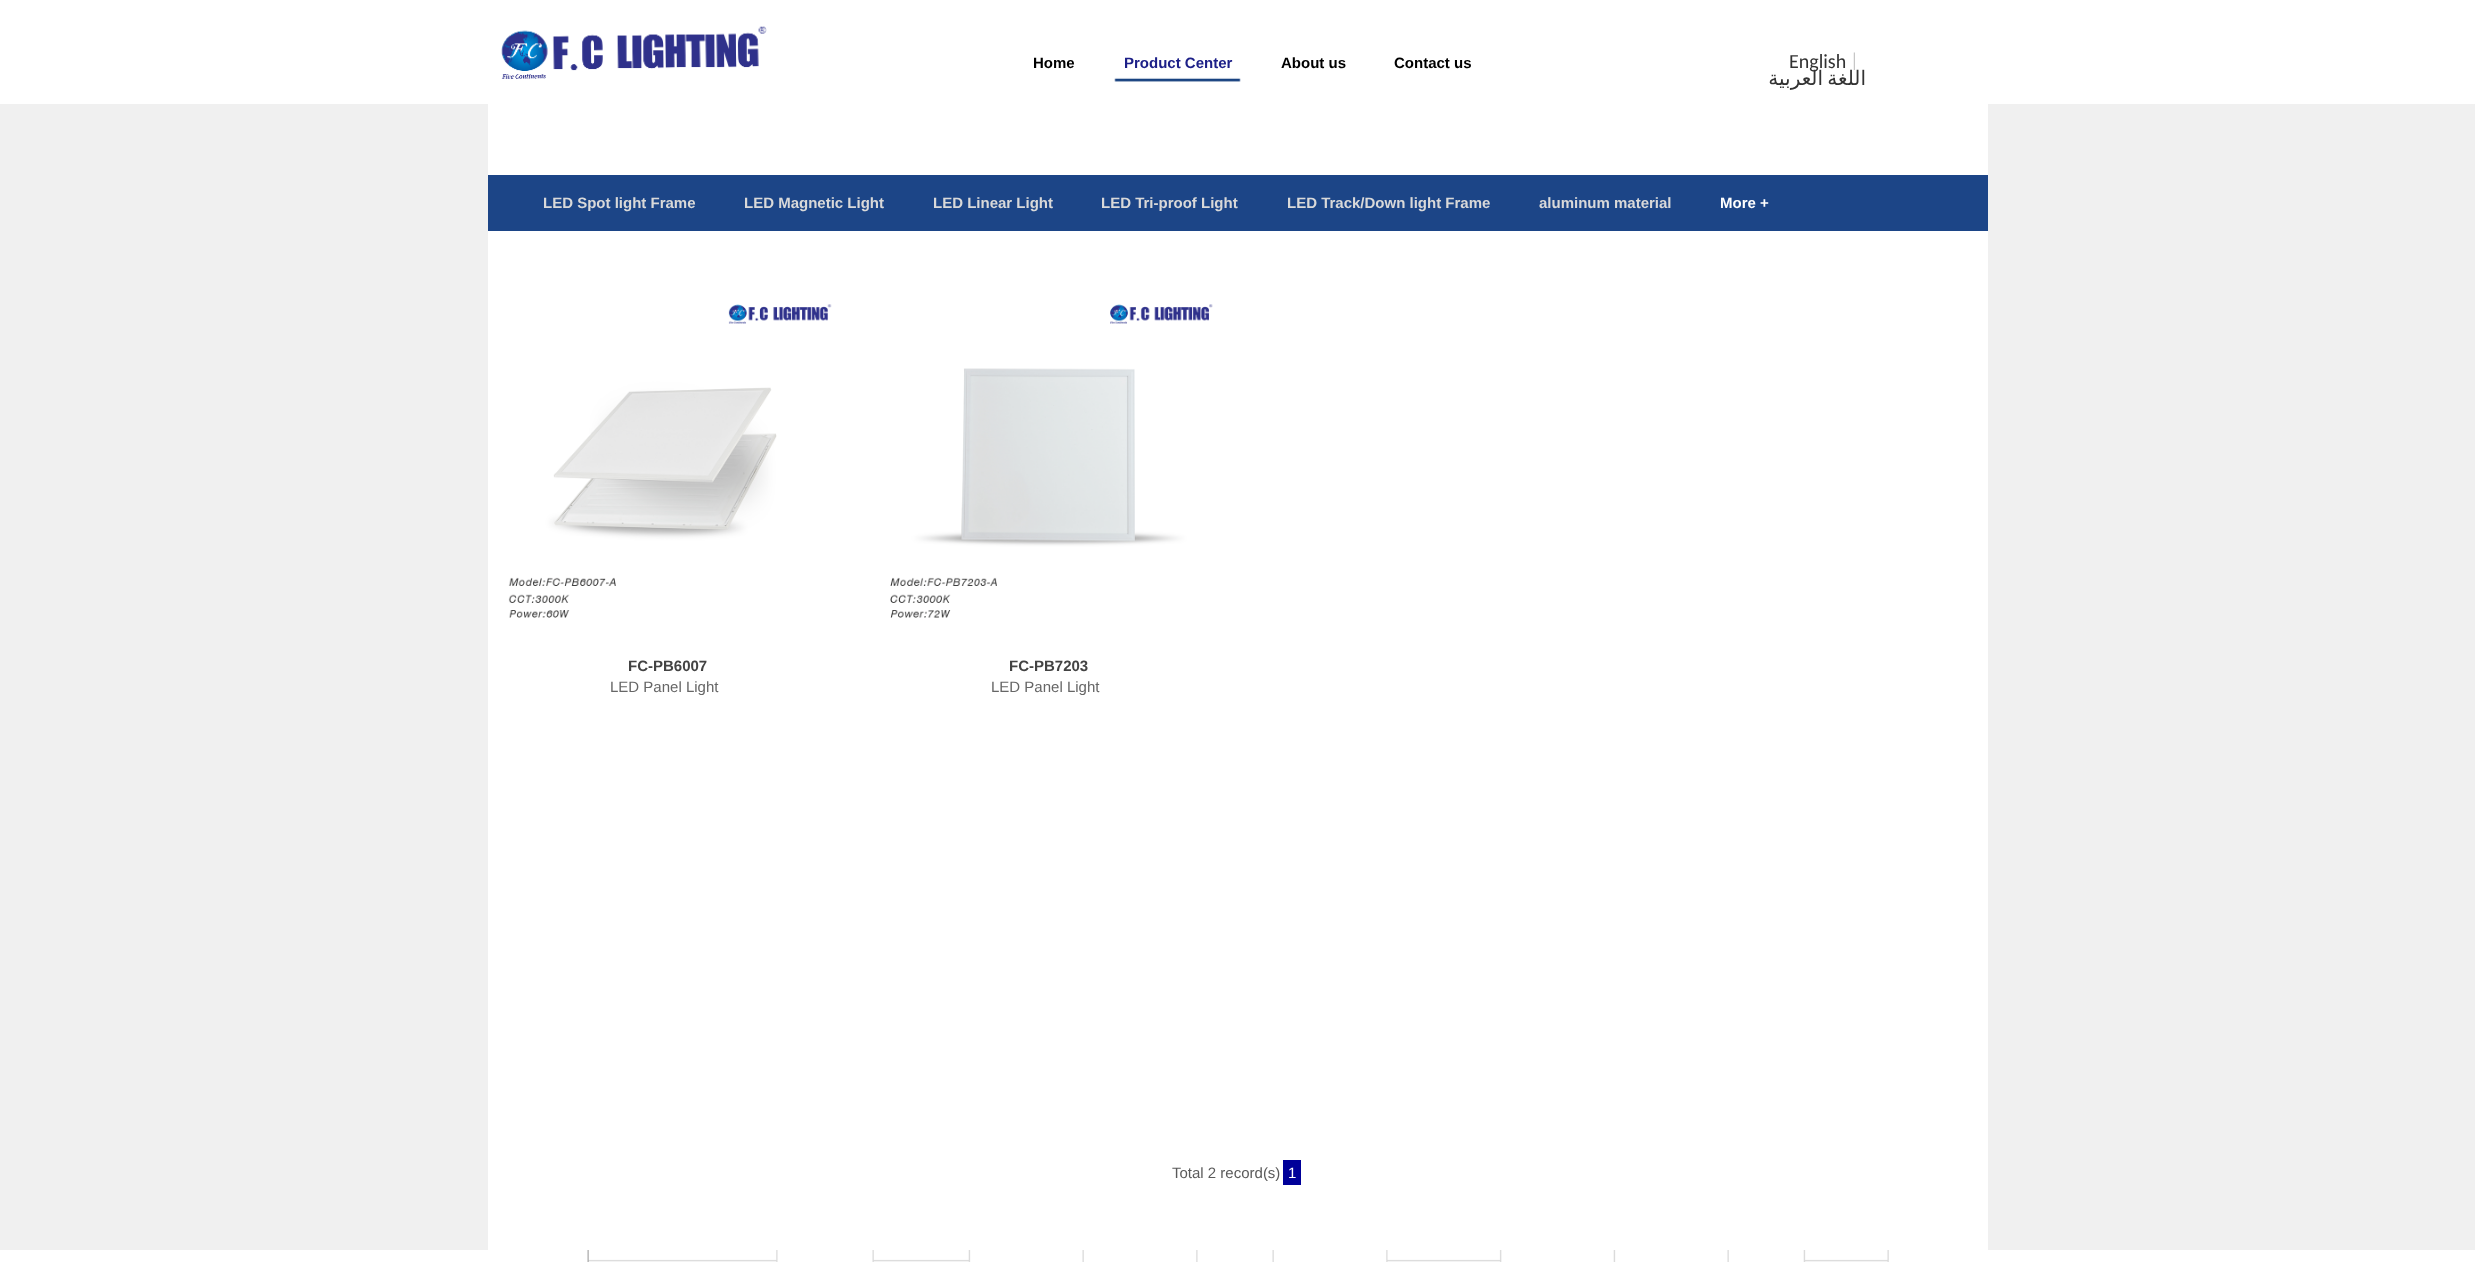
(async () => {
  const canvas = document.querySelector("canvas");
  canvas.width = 2475;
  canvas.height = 1262;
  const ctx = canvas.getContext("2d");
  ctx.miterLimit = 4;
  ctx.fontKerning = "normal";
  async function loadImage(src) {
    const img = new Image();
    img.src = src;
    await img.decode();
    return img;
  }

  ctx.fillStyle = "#f0f0f0";
  ctx.fillRect(0, 0, 2475, 1262);
  ctx.fillStyle = "#ffffff";
  ctx.fillRect(0, 0, 2475, 104);
  ctx.drawImage(await loadImage("img/1.png"), 501, 26, 266, 53);
  ctx.drawImage(await loadImage("img/2.png"), 1114, 77, 127, 5);
  ctx.drawImage(await loadImage("img/3.png"), 1853, 52, 2, 18);
  ctx.fillRect(488, 104, 1500, 1146);
  ctx.fillStyle = "#1c4587";
  ctx.fillRect(488, 175, 1500, 56);
  ctx.drawImage(await loadImage("img/4.png"), 508, 304, 324, 314);
  ctx.drawImage(await loadImage("img/5.png"), 890, 304, 323, 314);
  ctx.fillStyle = "#000099";
  ctx.fillRect(1283, 1160, 18, 25);
  ctx.fillStyle = "#ffffff";
  ctx.fillRect(0, 1250, 2475, 12);
  ctx.drawImage(await loadImage("img/6.png"), 587, 1250, 1302, 12);
  ctx.font = "bold 15px Liberation Sans";
  ctx.fillStyle = "#000000";
  ctx.fillText("Home", 1033, 68);
  ctx.fillStyle = "#1d2088";
  ctx.fillText("Product Center", 1124, 68);
  ctx.fillStyle = "#000000";
  ctx.fillText("About us", 1281, 68);
  ctx.fillText("Contact us", 1394, 68);
  ctx.font = "20px Carlito";
  ctx.fillStyle = "#333333";
  ctx.fillText("English", 1789, 68);
  ctx.wordSpacing = "-2px";
  ctx.direction = "rtl";
  ctx.font = "20px DejaVu Sans";
  ctx.fillText("اللغة العربية", 1866, 85);
  ctx.wordSpacing = "0px";
  ctx.direction = "ltr";
  ctx.font = "bold 15px Liberation Sans";
  ctx.fillStyle = "#d9d9d9";
  for (const [text, x, y] of [
    ["LED Spot light Frame", 543, 208],
    ["LED Magnetic Light", 744, 208],
    ["LED Linear Light", 933, 208],
    ["LED Tri-proof Light", 1101, 208],
    ["LED Track/Down light Frame", 1287, 208],
    ["aluminum material", 1539, 208],
  ]) {
    ctx.fillText(text, x, y);
  }
  ctx.fillStyle = "#ffffff";
  ctx.fillText("More +", 1720, 208);
  ctx.fillStyle = "#434343";
  ctx.fillText("FC-PB6007", 628, 671);
  ctx.font = "15px Liberation Sans";
  ctx.fillStyle = "#666666";
  ctx.fillText("LED Panel Light", 610, 692);
  ctx.font = "bold 15px Liberation Sans";
  ctx.fillStyle = "#434343";
  ctx.fillText("FC-PB7203", 1009, 671);
  ctx.font = "15px Liberation Sans";
  ctx.fillStyle = "#666666";
  ctx.fillText("LED Panel Light", 991, 692);
  ctx.fillStyle = "#5a5a5a";
  ctx.fillText("Total 2 record(s)", 1172, 1178);
  ctx.fillStyle = "#ffffff";
  ctx.fillText("1", 1288, 1178);
})();
